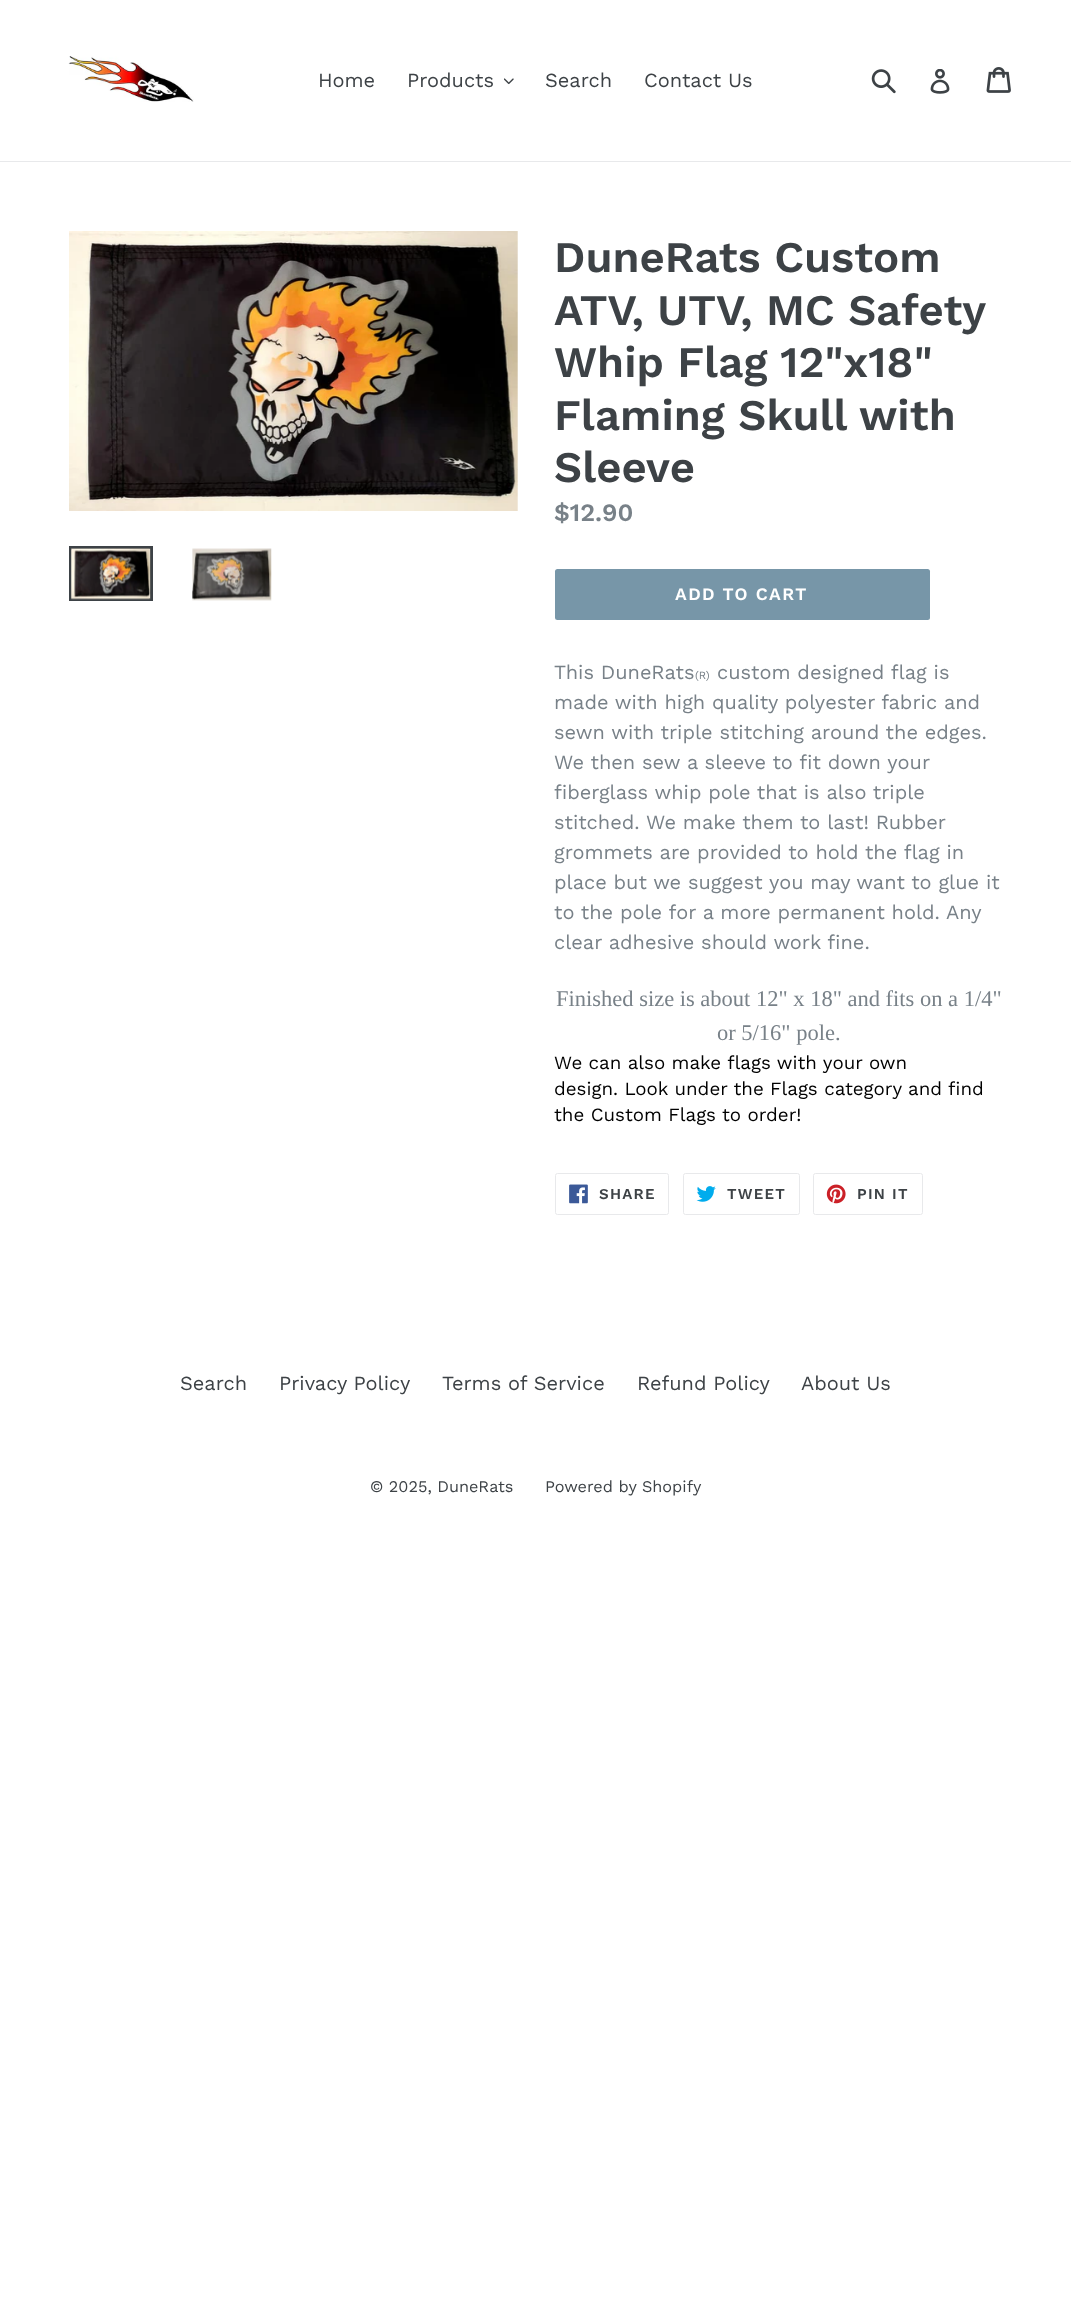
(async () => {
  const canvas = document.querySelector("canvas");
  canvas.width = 1071;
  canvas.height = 2324;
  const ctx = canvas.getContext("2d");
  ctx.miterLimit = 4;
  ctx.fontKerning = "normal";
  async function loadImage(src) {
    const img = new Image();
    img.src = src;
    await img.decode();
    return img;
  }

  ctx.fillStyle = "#ffffff";
  ctx.fillRect(0, 0, 1071, 2324);
  ctx.fillStyle = "#e8e9eb";
  ctx.fillRect(0, 161, 1071, 1);
  ctx.drawImage(await loadImage("img/1.png"), 68, 56, 126, 46);
  ctx.drawImage(await loadImage("img/2.png"), 504, 78, 10, 7);
  ctx.drawImage(await loadImage("img/3.png"), 871, 69, 25, 25);
  ctx.drawImage(await loadImage("img/4.png"), 930, 69, 20, 25);
  ctx.drawImage(await loadImage("img/5.png"), 986, 67, 25, 26);
  ctx.drawImage(await loadImage("img/6.png"), 69, 231, 449, 280);
  ctx.strokeStyle = "#3d4246";
  ctx.lineWidth = 3;
  ctx.strokeRect(70.5, 547.5, 81, 52);
  ctx.drawImage(await loadImage("img/7.png"), 71, 548, 80, 52);
  ctx.drawImage(await loadImage("img/8.png"), 192, 548, 80, 53);
  ctx.fillStyle = "#7796a8";
  ctx.beginPath();
  ctx.roundRect(555, 569, 375, 51, 2.5);
  ctx.fill();
  ctx.beginPath();
  ctx.roundRect(555.5, 1173.5, 113, 41, 2);
  ctx.strokeStyle = "#e8e9eb";
  ctx.lineWidth = 1;
  ctx.stroke();
  ctx.drawImage(await loadImage("img/9.png"), 569, 1184, 19, 20);
  ctx.beginPath();
  ctx.roundRect(683.5, 1173.5, 116, 41, 2);
  ctx.stroke();
  ctx.drawImage(await loadImage("img/10.png"), 696, 1186, 20, 16);
  ctx.beginPath();
  ctx.roundRect(813.5, 1173.5, 109, 41, 2);
  ctx.stroke();
  ctx.drawImage(await loadImage("img/11.png"), 826, 1184, 20, 20);
  ctx.font = "20px Work Sans";
  ctx.fillStyle = "#3d4246";
  for (const [text, x, y] of [
    ["Home", 318, 87],
    ["Products", 407, 87],
    ["Search", 545, 87],
    ["Contact Us", 644, 87],
  ]) {
    ctx.fillText(text, x, y);
  }
  ctx.font = "600 43.75px Work Sans";
  for (const [text, x, y] of [
    ["DuneRats Custom", 554, 272],
    ["ATV, UTV, MC Safety", 554, 325],
    ["Whip Flag 12\"x18\"", 554, 377],
    ["Flaming Skull with", 554, 430],
    ["Sleeve", 554, 482],
  ]) {
    ctx.fillText(text, x, y);
  }
  ctx.font = "600 25px Work Sans";
  ctx.fillStyle = "#788188";
  ctx.fillText("$12.90", 554, 521);
  ctx.letterSpacing = "1.4px";
  ctx.font = "600 17.5px Work Sans";
  ctx.fillStyle = "#ffffff";
  ctx.fillText("ADD TO CART", 675, 600);
  ctx.letterSpacing = "0px";
  ctx.font = "20px Work Sans";
  ctx.fillStyle = "#788188";
  ctx.fillText("This DuneRats", 554, 679);
  ctx.font = "11px Work Sans";
  ctx.fillText("(R)", 695, 679);
  ctx.font = "20px Work Sans";
  for (const [text, x, y] of [
    ["custom designed flag is", 717, 679],
    ["made with high quality polyester fabric and", 554, 709],
    ["sewn with triple stitching around the edges.", 554, 739],
    ["We then sew a sleeve to fit down your", 554, 769],
    ["fiberglass whip pole that is also triple", 554, 799],
    ["stitched. We make them to last! Rubber", 554, 829],
    ["grommets are provided to hold the flag in", 554, 859],
    ["place but we suggest you may want to glue it", 554, 889],
    ["to the pole for a more permanent hold. Any", 554, 919],
    ["clear adhesive should work fine.", 554, 949],
  ]) {
    ctx.fillText(text, x, y);
  }
  ctx.font = "22.5px Liberation Serif";
  ctx.fillText("Finished size is about 12\" x 18\" and fits on a 1/4\"", 556, 1006);
  ctx.fillText("or 5/16\" pole.", 717, 1040);
  ctx.font = "18.75px Work Sans";
  ctx.fillStyle = "#000000";
  for (const [text, x, y] of [
    ["We can also make flags with your own", 554, 1069],
    ["design. Look under the Flags category and find", 554, 1095],
    ["the Custom Flags to order!", 554, 1121],
  ]) {
    ctx.fillText(text, x, y);
  }
  ctx.letterSpacing = "1.25px";
  ctx.font = "600 15px Work Sans";
  ctx.fillStyle = "#3d4246";
  for (const [text, x, y] of [
    ["SHARE", 599, 1199],
    ["TWEET", 727, 1199],
    ["PIN IT", 857, 1199],
  ]) {
    ctx.fillText(text, x, y);
  }
  ctx.letterSpacing = "0px";
  ctx.font = "20px Work Sans";
  for (const [text, x, y] of [
    ["Search", 180, 1390],
    ["Privacy Policy", 279, 1390],
    ["Terms of Service", 442, 1390],
    ["Refund Policy", 637, 1390],
    ["About Us", 801, 1390],
  ]) {
    ctx.fillText(text, x, y);
  }
  ctx.font = "16.25px Work Sans";
  ctx.fillText("© 2025, DuneRats", 370, 1492);
  ctx.fillText("Powered by Shopify", 545, 1492);
})();
